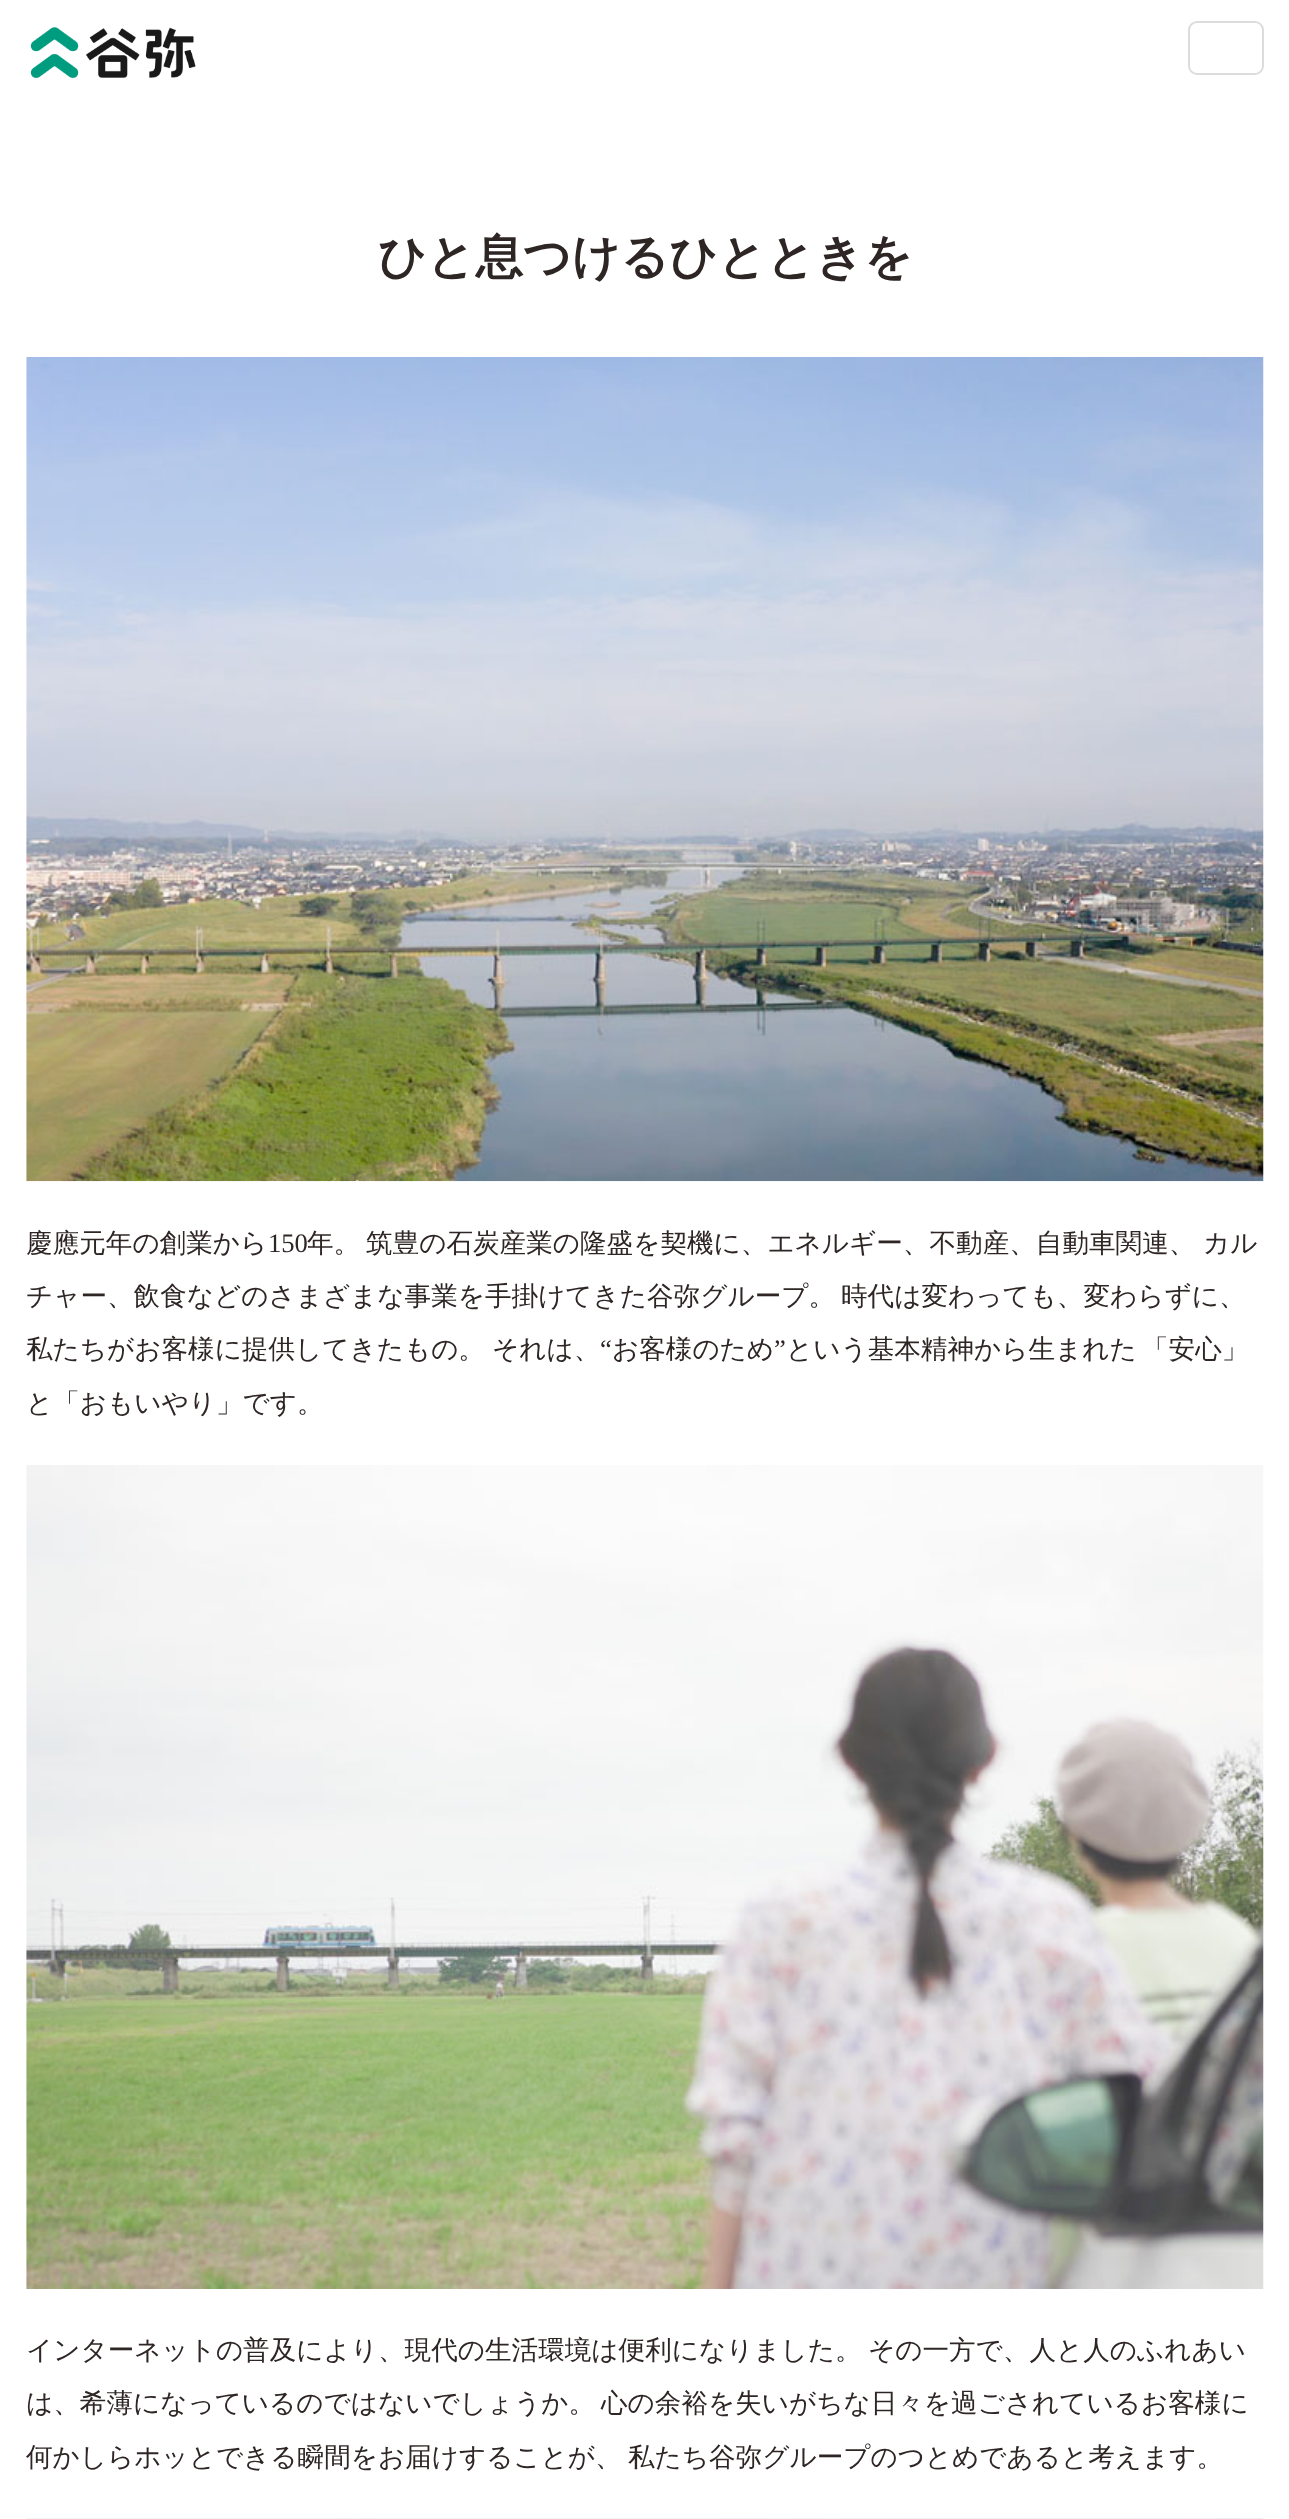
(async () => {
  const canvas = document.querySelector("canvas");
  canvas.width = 1289;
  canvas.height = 2519;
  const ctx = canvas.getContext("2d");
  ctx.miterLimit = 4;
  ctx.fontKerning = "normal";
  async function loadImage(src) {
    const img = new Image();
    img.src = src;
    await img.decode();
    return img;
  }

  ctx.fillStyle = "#ffffff";
  ctx.fillRect(0, 0, 1289, 2519);
  ctx.drawImage(await loadImage("img/1.png"), 30, 27, 166, 51);
  ctx.beginPath();
  ctx.roundRect(1189, 22, 74, 52, 8);
  ctx.strokeStyle = "#dcdcdd";
  ctx.lineWidth = 2;
  ctx.stroke();
  ctx.drawImage(await loadImage("img/2.png"), 26, 357, 1238, 825);
  ctx.drawImage(await loadImage("img/3.png"), 26, 1465, 1238, 824);
  ctx.drawImage(await loadImage("img/4.png"), 26, 2518, 1237, 1);
  ctx.font = "bold 47.6px WenQuanYi Zen Hei";
  ctx.fillStyle = "#2e2624";
  ctx.fillText("ひと息つけるひとときを", 378, 273);
  ctx.font = "500 26.6px WenQuanYi Zen Hei";
  ctx.fillText("慶應元年の創業から", 26, 1252);
  ctx.font = "26.6px Liberation Serif";
  ctx.fillText("150", 268, 1252);
  ctx.font = "500 26.6px WenQuanYi Zen Hei";
  for (const [text, x, y] of [
    ["年。", 307, 1252],
    ["筑豊の石炭産業の隆盛を契機に、エネルギー、不動産、自動車関連、", 366, 1252],
    ["カル", 1203, 1252],
    ["チャー、飲食などのさまざまな事業を手掛けてきた谷弥グループ。", 26, 1305],
    ["時代は変わっても、変わらずに、", 841, 1305],
    ["私たちがお客様に提供してきたもの。", 26, 1358],
    ["それは、", 492, 1358],
  ]) {
    ctx.fillText(text, x, y);
  }
  ctx.font = "26.6px Liberation Serif";
  ctx.fillText("“", 600, 1358);
  ctx.font = "500 26.6px WenQuanYi Zen Hei";
  ctx.fillText("お客様のため", 612, 1358);
  ctx.font = "26.6px Liberation Serif";
  ctx.fillText("”", 774, 1358);
  ctx.font = "500 26.6px WenQuanYi Zen Hei";
  for (const [text, x, y] of [
    ["という基本精神から生まれた", 786, 1358],
    ["「安心」", 1142, 1358],
    ["と「おもいやり」です。", 26, 1412],
    ["インターネットの普及により、現代の生活環境は便利になりました。", 26, 2359],
    ["その一方で、人と人のふれあい", 868, 2359],
    ["は、希薄になっているのではないでしょうか。", 26, 2412],
    ["心の余裕を失いがちな日々を過ごされているお客様に", 601, 2412],
    ["何かしらホッとできる瞬間をお届けすることが、", 26, 2466],
    ["私たち谷弥グループのつとめであると考えます。", 628, 2466],
  ]) {
    ctx.fillText(text, x, y);
  }
})();
